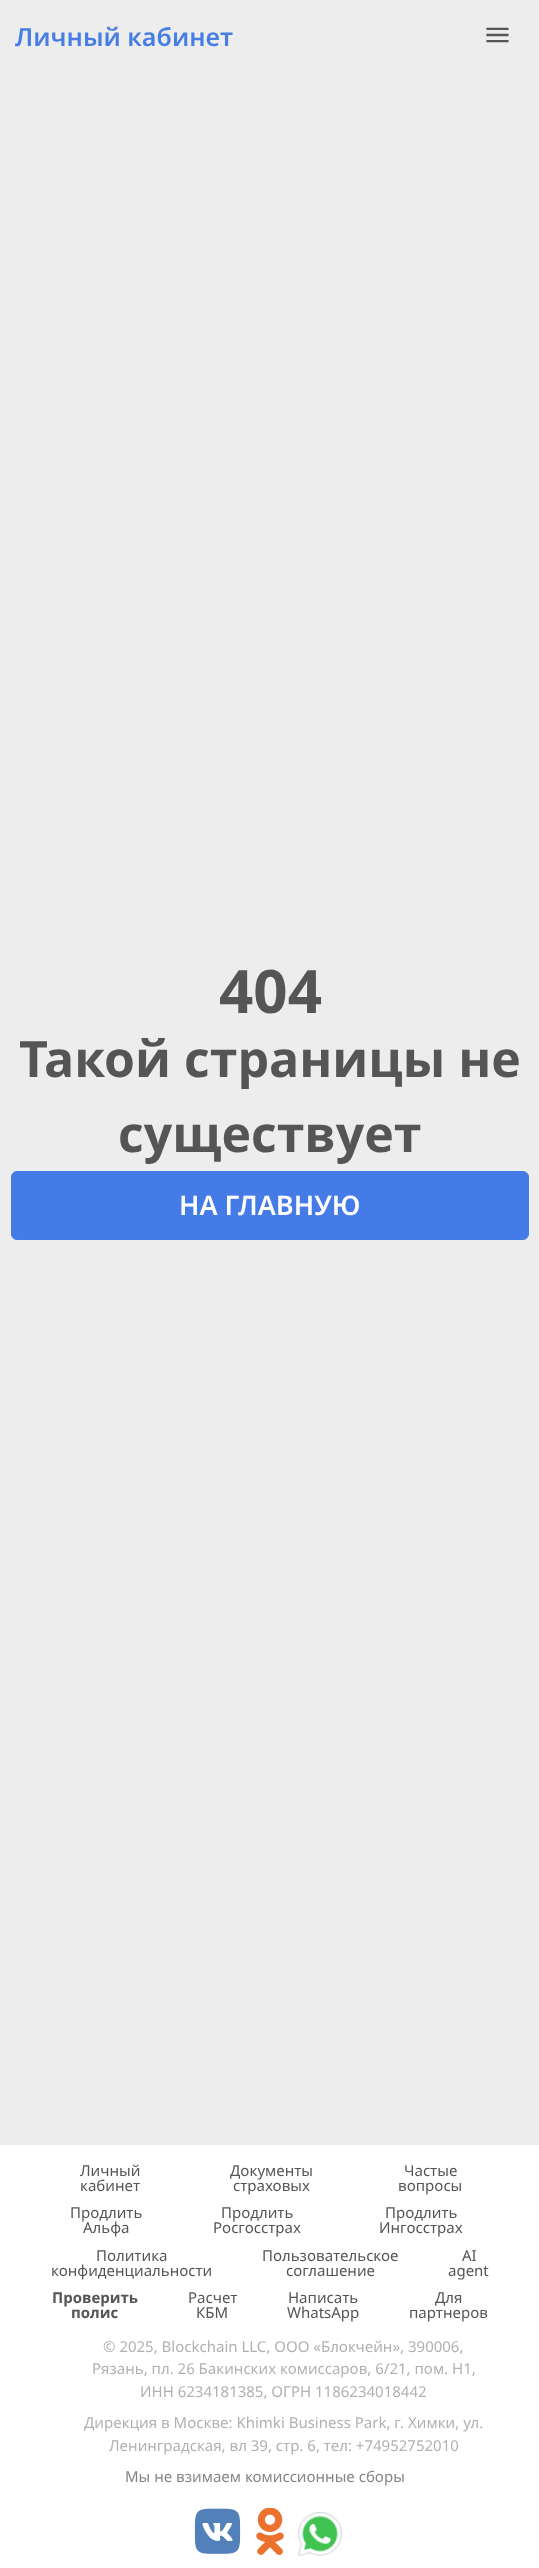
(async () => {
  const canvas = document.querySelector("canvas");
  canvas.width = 539;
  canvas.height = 2568;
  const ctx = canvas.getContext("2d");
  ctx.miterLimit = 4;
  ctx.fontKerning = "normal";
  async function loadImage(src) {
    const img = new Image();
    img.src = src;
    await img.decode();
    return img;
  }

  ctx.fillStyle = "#ededed";
  ctx.fillRect(0, 0, 539, 2568);
  ctx.drawImage(await loadImage("img/1.png"), 486, 27, 23, 16);
  ctx.fillStyle = "#457be7";
  ctx.beginPath();
  ctx.roundRect(11.5, 1171.5, 517, 68, 5.5);
  ctx.fill();
  ctx.strokeStyle = "#457be7";
  ctx.stroke();
  ctx.fillStyle = "#ffffff";
  ctx.fillRect(0, 2145, 539, 423);
  ctx.drawImage(await loadImage("img/2.png"), 194, 2508, 47, 46);
  ctx.drawImage(await loadImage("img/3.png"), 256, 2508, 28, 47);
  ctx.drawImage(await loadImage("img/4.png"), 298, 2511, 44, 46);
  ctx.font = "600 25px Noto Sans";
  ctx.fillStyle = "#487ee4";
  ctx.fillText("Личный кабинет", 15, 46);
  ctx.font = "bold 60px Noto Sans";
  ctx.fillStyle = "#555555";
  ctx.fillText("404", 219, 1013);
  ctx.font = "bold 50px Noto Sans";
  ctx.fillText("Такой страницы не", 19, 1077);
  ctx.fillText("существует", 118, 1152);
  ctx.font = "600 27px Noto Sans";
  ctx.fillStyle = "#ffffff";
  ctx.fillText("НА ГЛАВНУЮ", 179, 1215);
  ctx.font = "15px Noto Sans";
  ctx.fillStyle = "#555555";
  for (const [text, x, y] of [
    ["Личный", 80, 2176],
    ["кабинет", 80, 2191],
    ["Документы", 230, 2176],
    ["страховых", 233, 2191],
    ["Частые", 404, 2176],
    ["вопросы", 398, 2191],
    ["Продлить", 70, 2218],
    ["Альфа", 83, 2233],
    ["Продлить", 221, 2218],
    ["Росгосстрах", 213, 2233],
    ["Продлить", 385, 2218],
    ["Ингосстрах", 379, 2233],
    ["Политика", 96, 2261],
    ["конфиденциальности", 51, 2276],
    ["Пользовательское", 262, 2261],
    ["соглашение", 286, 2276],
    ["AI", 462, 2261],
    ["agent", 448, 2276],
  ]) {
    ctx.fillText(text, x, y);
  }
  ctx.font = "bold 15px Noto Sans";
  ctx.fillText("Проверить", 52, 2303);
  ctx.fillText("полис", 71, 2318);
  ctx.font = "15px Noto Sans";
  for (const [text, x, y] of [
    ["Расчет", 188, 2303],
    ["КБМ", 196, 2318],
    ["Написать", 288, 2303],
    ["WhatsApp", 287, 2318],
    ["Для", 435, 2303],
    ["партнеров", 409, 2318],
  ]) {
    ctx.fillText(text, x, y);
  }
  ctx.fillStyle = "#b1b1b1";
  for (const [text, x, y] of [
    ["© 2025, Blockchain LLC, ООО «Блокчейн», 390006,", 103, 2352],
    ["Рязань, пл. 26 Бакинских комиссаров, 6/21, пом. H1,", 92, 2374],
    ["ИНН 6234181385, ОГРН 1186234018442", 140, 2397],
    ["Дирекция в Москве: Khimki Business Park, г. Химки, ул.", 84, 2428],
    ["Ленинградская, вл 39, стр. 6, тел: +74952752010", 109, 2451],
  ]) {
    ctx.fillText(text, x, y);
  }
  ctx.fillStyle = "#858585";
  ctx.fillText("Мы не взимаем комиссионные сборы", 125, 2482);
})();
